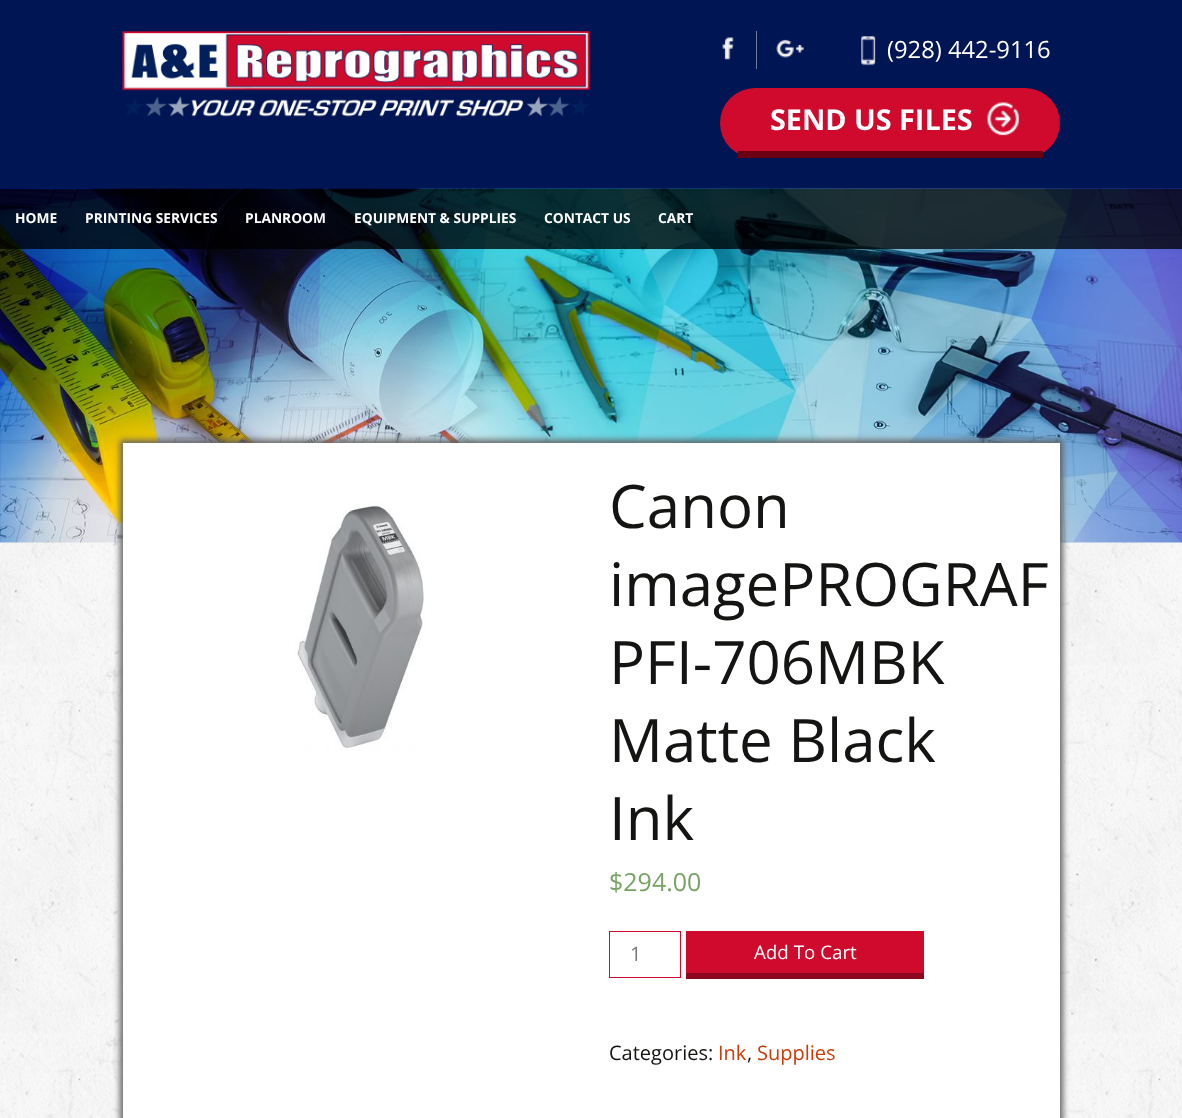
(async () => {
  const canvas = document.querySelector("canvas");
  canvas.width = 1182;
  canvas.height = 1118;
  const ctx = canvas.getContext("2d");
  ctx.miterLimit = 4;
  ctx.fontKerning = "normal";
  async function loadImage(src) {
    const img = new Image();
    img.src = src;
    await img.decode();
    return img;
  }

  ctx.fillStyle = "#ffffff";
  ctx.fillRect(0, 0, 1182, 1118);
  ctx.drawImage(await loadImage("img/1.png"), 0, 542, 1182, 576);
  ctx.fillStyle = "#001554";
  ctx.fillRect(0, 0, 1182, 189);
  ctx.drawImage(await loadImage("img/2.png"), 122, 31, 469, 86);
  ctx.fillStyle = "#6f7a9c";
  ctx.fillRect(756, 31, 1, 38);
  ctx.drawImage(await loadImage("img/3.png"), 722, 37, 12, 24);
  ctx.drawImage(await loadImage("img/4.png"), 776, 39, 28, 19);
  ctx.drawImage(await loadImage("img/5.png"), 861, 36, 15, 30);
  ctx.fillStyle = "#cf0a2c";
  ctx.beginPath();
  ctx.roundRect(720, 88, 340, 70, 35);
  ctx.fill();
  ctx.fillStyle = "#6b0012";
  ctx.fillRect(738, 151, 305, 7);
  ctx.drawImage(await loadImage("img/6.png"), 987, 102, 32, 34);
  ctx.drawImage(await loadImage("img/7.png"), 0, 188, 1182, 355);
  ctx.fillStyle = "rgba(0, 0, 0, 0.77)";
  ctx.fillRect(0, 189, 1182, 60);
  ctx.fillStyle = "#636363";
  ctx.filter = "blur(3px)";
  ctx.beginPath();
  ctx.rect(120, 440, 943, 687);
  ctx.fill();
  ctx.filter = "none";
  ctx.fillStyle = "#ffffff";
  ctx.fillRect(123, 443, 937, 675);
  ctx.drawImage(await loadImage("img/8.png"), 295, 502, 130, 249);
  ctx.strokeStyle = "#cf0a2c";
  ctx.strokeRect(609.5, 931.5, 71, 46);
  ctx.fillStyle = "#cf0a2c";
  ctx.fillRect(686, 931, 238, 42);
  ctx.fillStyle = "#8b071e";
  ctx.fillRect(686, 973, 238, 6);
  ctx.font = "23.75px Open Sans";
  ctx.fillStyle = "#ffffff";
  ctx.fillText("(928) 442-9116", 887, 58);
  ctx.font = "bold 28.75px Open Sans";
  ctx.fillText("SEND US FILES", 770, 130);
  ctx.font = "bold 13.75px Open Sans";
  for (const [text, x, y] of [
    ["HOME", 15, 223],
    ["PRINTING SERVICES", 85, 223],
    ["PLANROOM", 245, 223],
    ["EQUIPMENT & SUPPLIES", 354, 223],
    ["CONTACT US", 544, 223],
    ["CART", 658, 223],
  ]) {
    ctx.fillText(text, x, y);
  }
  ctx.font = "60px Open Sans";
  ctx.fillStyle = "#141412";
  for (const [text, x, y] of [
    ["Canon", 609, 528],
    ["imagePROGRAF", 609, 606],
    ["PFI-706MBK", 609, 684],
    ["Matte Black", 609, 762],
    ["Ink", 609, 840],
  ]) {
    ctx.fillText(text, x, y);
  }
  ctx.font = "25px Open Sans";
  ctx.fillStyle = "#77a464";
  ctx.fillText("$294.00", 609, 891);
  ctx.font = "20px Open Sans";
  ctx.fillStyle = "#7a7a7a";
  ctx.fillText("1", 630, 961);
  ctx.font = "18.75px Open Sans";
  ctx.fillStyle = "#ffffff";
  ctx.fillText("Add To Cart", 754, 959);
  ctx.font = "20px Open Sans";
  ctx.fillStyle = "#141412";
  ctx.fillText("Categories:", 609, 1060);
  ctx.fillStyle = "#ca3c08";
  ctx.fillText("Ink", 718, 1060);
  ctx.fillStyle = "#141412";
  ctx.fillText(",", 747, 1060);
  ctx.fillStyle = "#ca3c08";
  ctx.fillText("Supplies", 757, 1060);
})();
